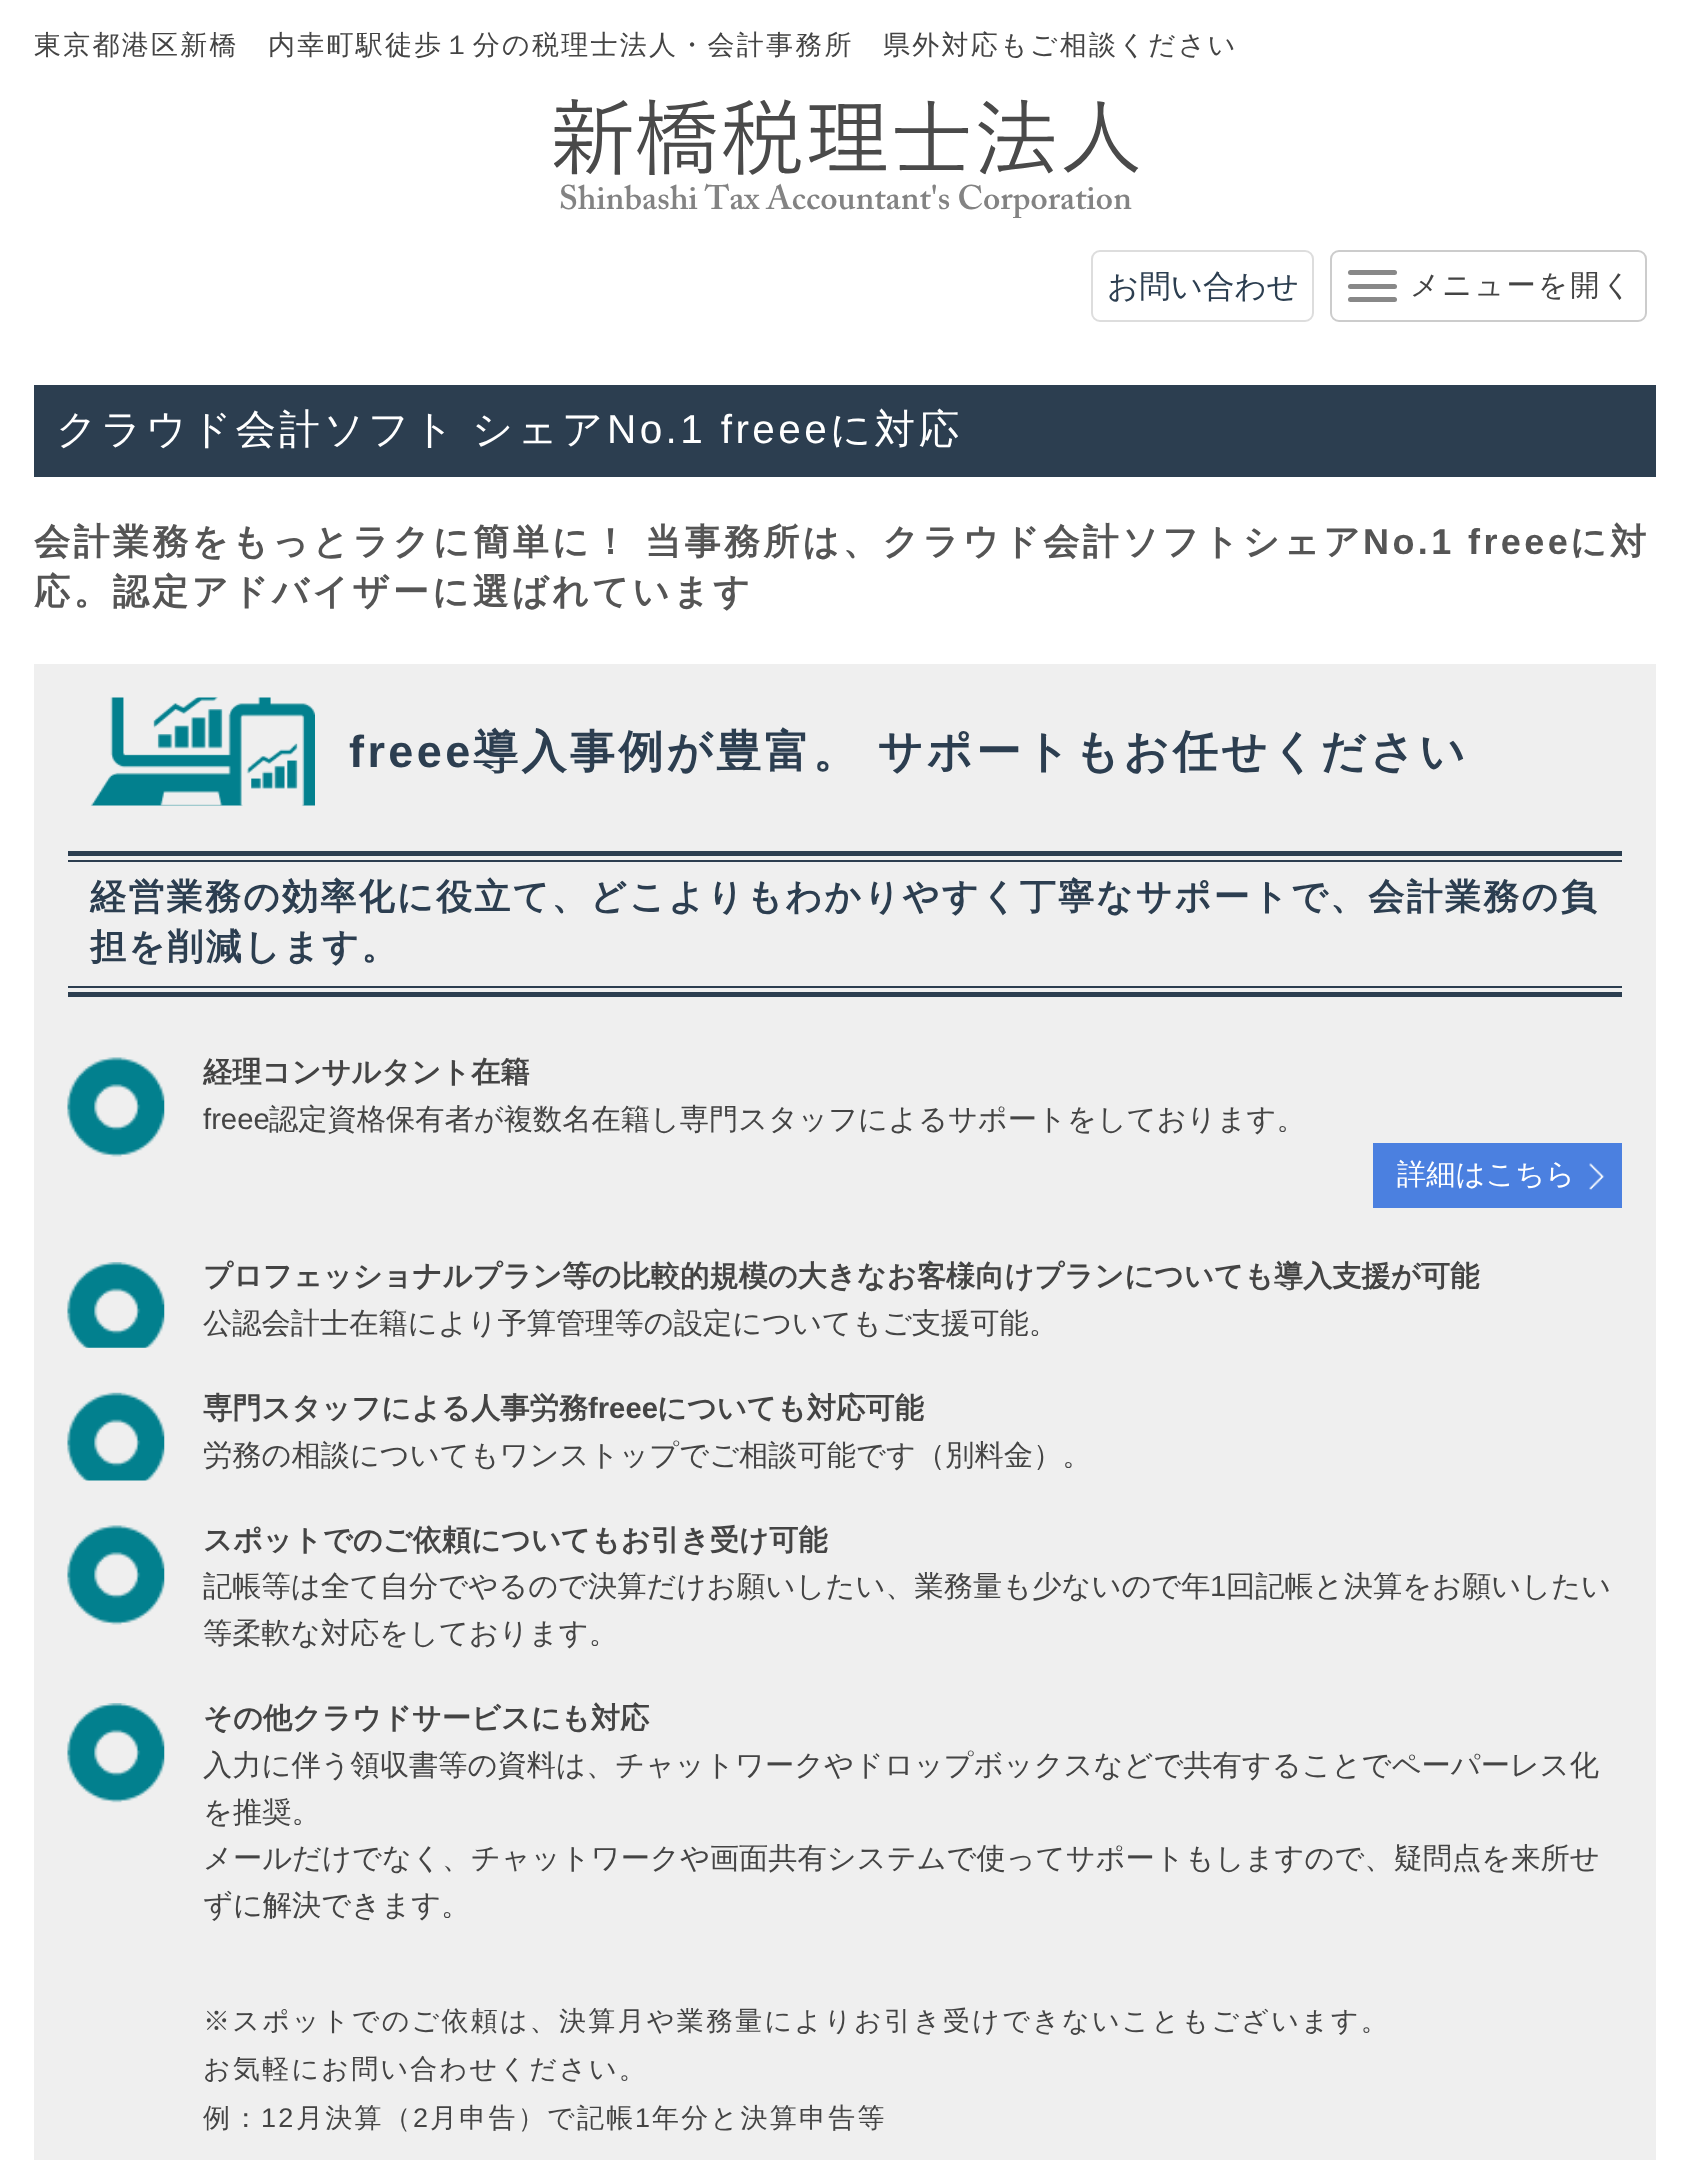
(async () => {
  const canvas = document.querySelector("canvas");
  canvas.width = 1689;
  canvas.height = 2160;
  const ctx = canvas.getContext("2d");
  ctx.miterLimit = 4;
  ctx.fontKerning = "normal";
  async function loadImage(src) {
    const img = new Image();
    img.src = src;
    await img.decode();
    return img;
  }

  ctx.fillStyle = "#ffffff";
  ctx.fillRect(0, 0, 1689, 2160);
  ctx.drawImage(await loadImage("img/1.png"), 554, 99, 585, 119);
  ctx.beginPath();
  ctx.roundRect(1092, 251, 221, 70, 8);
  ctx.strokeStyle = "#dddddd";
  ctx.lineWidth = 2;
  ctx.stroke();
  ctx.beginPath();
  ctx.roundRect(1331, 251, 315, 70, 8);
  ctx.strokeStyle = "#cccccc";
  ctx.stroke();
  ctx.fillStyle = "#888888";
  ctx.beginPath();
  ctx.roundRect(1348, 270, 49, 5, 2.5);
  ctx.fill();
  ctx.beginPath();
  ctx.roundRect(1348, 284, 49, 5, 2.5);
  ctx.fill();
  ctx.beginPath();
  ctx.roundRect(1348, 297, 49, 5, 2.5);
  ctx.fill();
  ctx.fillStyle = "#2c3e50";
  ctx.fillRect(34, 385, 1622, 92);
  ctx.fillStyle = "#efefef";
  ctx.fillRect(34, 664, 1622, 1496);
  ctx.drawImage(await loadImage("img/2.png"), 90, 697, 225, 109);
  for (const [x, y, w, h, color] of [
    [68, 851, 1554, 5, "#2c3e50"],
    [68, 992, 1554, 5, "#2c3e50"],
    [68, 860, 1554, 2, "#2c3e50"],
    [68, 986, 1554, 2, "#2c3e50"],
  ]) {
    ctx.fillStyle = color;
    ctx.fillRect(x, y, w, h);
  }
  ctx.drawImage(await loadImage("img/3.png"), 67, 1057, 98, 100);
  ctx.fillStyle = "#4b80e0";
  ctx.fillRect(1373, 1143, 249, 65);
  ctx.drawImage(await loadImage("img/4.png"), 1589, 1163, 16, 27);
  ctx.drawImage(await loadImage("img/5.png"), 67, 1262, 98, 86);
  ctx.drawImage(await loadImage("img/6.png"), 67, 1392, 98, 89);
  ctx.drawImage(await loadImage("img/7.png"), 67, 1525, 98, 100);
  ctx.drawImage(await loadImage("img/8.png"), 67, 1703, 98, 100);
  ctx.letterSpacing = "2.25px";
  ctx.font = "500 27px WenQuanYi Zen Hei";
  ctx.fillStyle = "#444444";
  ctx.fillText("東京都港区新橋　内幸町駅徒歩１分の税理士法人・会計事務所　県外対応もご相談ください", 34, 54);
  ctx.letterSpacing = "0px";
  ctx.font = "500 31.5px WenQuanYi Zen Hei";
  ctx.fillStyle = "#2c3e50";
  ctx.fillText("お問い合わせ", 1107, 297);
  ctx.letterSpacing = "2.25px";
  ctx.font = "500 29.25px WenQuanYi Zen Hei";
  ctx.fillStyle = "#444444";
  ctx.fillText("メニューを開く", 1410, 295);
  ctx.letterSpacing = "3.4px";
  ctx.font = "500 40.5px WenQuanYi Zen Hei";
  ctx.fillStyle = "#ffffff";
  ctx.fillText("クラウド会計ソフト", 56, 443);
  ctx.fillText("シェア", 472, 443);
  ctx.font = "40.5px Liberation Sans";
  ctx.fillText("No.1 freee", 607, 443);
  ctx.font = "500 40.5px WenQuanYi Zen Hei";
  ctx.fillText("に対応", 830, 443);
  ctx.font = "bold 36px WenQuanYi Zen Hei";
  ctx.fillStyle = "#555555";
  ctx.fillText("会計業務をもっとラクに簡単に！", 34, 554);
  ctx.fillText("当事務所は、クラウド会計ソフトシェア", 645, 554);
  ctx.font = "bold 36px Liberation Sans";
  ctx.fillText("No.1 freee", 1363, 554);
  ctx.font = "bold 36px WenQuanYi Zen Hei";
  ctx.fillText("に対", 1570, 554);
  ctx.fillText("応。認定アドバイザーに選ばれています", 34, 604);
  ctx.font = "bold 45px Liberation Sans";
  ctx.fillStyle = "#2c3e50";
  ctx.fillText("freee", 349, 767);
  ctx.wordSpacing = "-1px";
  ctx.font = "bold 45px WenQuanYi Zen Hei";
  ctx.fillText("導入事例が豊富。 サポートもお任せください", 473, 767);
  ctx.letterSpacing = "2.25px";
  ctx.wordSpacing = "0px";
  ctx.font = "bold 36px WenQuanYi Zen Hei";
  ctx.fillText("経営業務の効率化に役立て、どこよりもわかりやすく丁寧なサポートで、会計業務の負", 90, 909);
  ctx.fillText("担を削減します。", 90, 959);
  ctx.letterSpacing = "0px";
  ctx.font = "bold 29.25px WenQuanYi Zen Hei";
  ctx.fillStyle = "#444444";
  ctx.fillText("経理コンサルタント在籍", 203, 1082);
  ctx.font = "29.25px Liberation Sans";
  ctx.fillText("freee", 203, 1129);
  ctx.font = "500 29.25px WenQuanYi Zen Hei";
  ctx.fillText("認定資格保有者が複数名在籍し専門スタッフによるサポートをしております。", 269, 1129);
  ctx.fillStyle = "#ffffff";
  ctx.fillText("詳細はこちら", 1397, 1184);
  ctx.font = "bold 29.25px WenQuanYi Zen Hei";
  ctx.fillStyle = "#444444";
  ctx.fillText("プロフェッショナルプラン等の比較的規模の大きなお客様向けプランについても導入支援が可能", 203, 1286);
  ctx.font = "500 29.25px WenQuanYi Zen Hei";
  ctx.fillText("公認会計士在籍により予算管理等の設定についてもご支援可能。", 203, 1333);
  ctx.font = "bold 29.25px WenQuanYi Zen Hei";
  ctx.fillText("専門スタッフによる人事労務", 203, 1418);
  ctx.font = "bold 29.25px Liberation Sans";
  ctx.fillText("freee", 588, 1418);
  ctx.font = "bold 29.25px WenQuanYi Zen Hei";
  ctx.fillText("についても対応可能", 657, 1418);
  ctx.font = "500 29.25px WenQuanYi Zen Hei";
  ctx.fillText("労務の相談についてもワンストップでご相談可能です（別料金）。", 203, 1465);
  ctx.font = "bold 29.25px WenQuanYi Zen Hei";
  ctx.fillText("スポットでのご依頼についてもお引き受け可能", 203, 1550);
  ctx.font = "500 29.25px WenQuanYi Zen Hei";
  ctx.fillText("記帳等は全て自分でやるので決算だけお願いしたい、業務量も少ないので年", 203, 1596);
  ctx.font = "29.25px Liberation Sans";
  ctx.fillText("1", 1210, 1596);
  ctx.font = "500 29.25px WenQuanYi Zen Hei";
  ctx.fillText("回記帳と決算をお願いしたい", 1226, 1596);
  ctx.fillText("等柔軟な対応をしております。", 203, 1643);
  ctx.font = "bold 29.25px WenQuanYi Zen Hei";
  ctx.fillText("その他クラウドサービスにも対応", 203, 1728);
  ctx.font = "500 29.25px WenQuanYi Zen Hei";
  for (const [text, x, y] of [
    ["入力に伴う領収書等の資料は、チャットワークやドロップボックスなどで共有することでペーパーレス化", 203, 1775],
    ["を推奨。", 203, 1822],
    ["メールだけでなく、チャットワークや画面共有システムで使ってサポートもしますので、疑問点を来所せ", 203, 1868],
    ["ずに解決できます。", 203, 1915],
  ]) {
    ctx.fillText(text, x, y);
  }
  ctx.letterSpacing = "2.25px";
  ctx.font = "500 27px WenQuanYi Zen Hei";
  for (const [text, x, y] of [
    ["※スポットでのご依頼は、決算月や業務量によりお引き受けできないこともございます。", 203, 2030],
    ["お気軽にお問い合わせください。", 203, 2078],
    ["例：", 203, 2127],
  ]) {
    ctx.fillText(text, x, y);
  }
  ctx.font = "27px Liberation Sans";
  ctx.fillText("12", 261, 2127);
  ctx.font = "500 27px WenQuanYi Zen Hei";
  ctx.fillText("月決算（", 296, 2127);
  ctx.font = "27px Liberation Sans";
  ctx.fillText("2", 413, 2127);
  ctx.font = "500 27px WenQuanYi Zen Hei";
  ctx.fillText("月申告）で記帳", 430, 2127);
  ctx.font = "27px Liberation Sans";
  ctx.fillText("1", 635, 2127);
  ctx.font = "500 27px WenQuanYi Zen Hei";
  ctx.fillText("年分と決算申告等", 652, 2127);
})();
